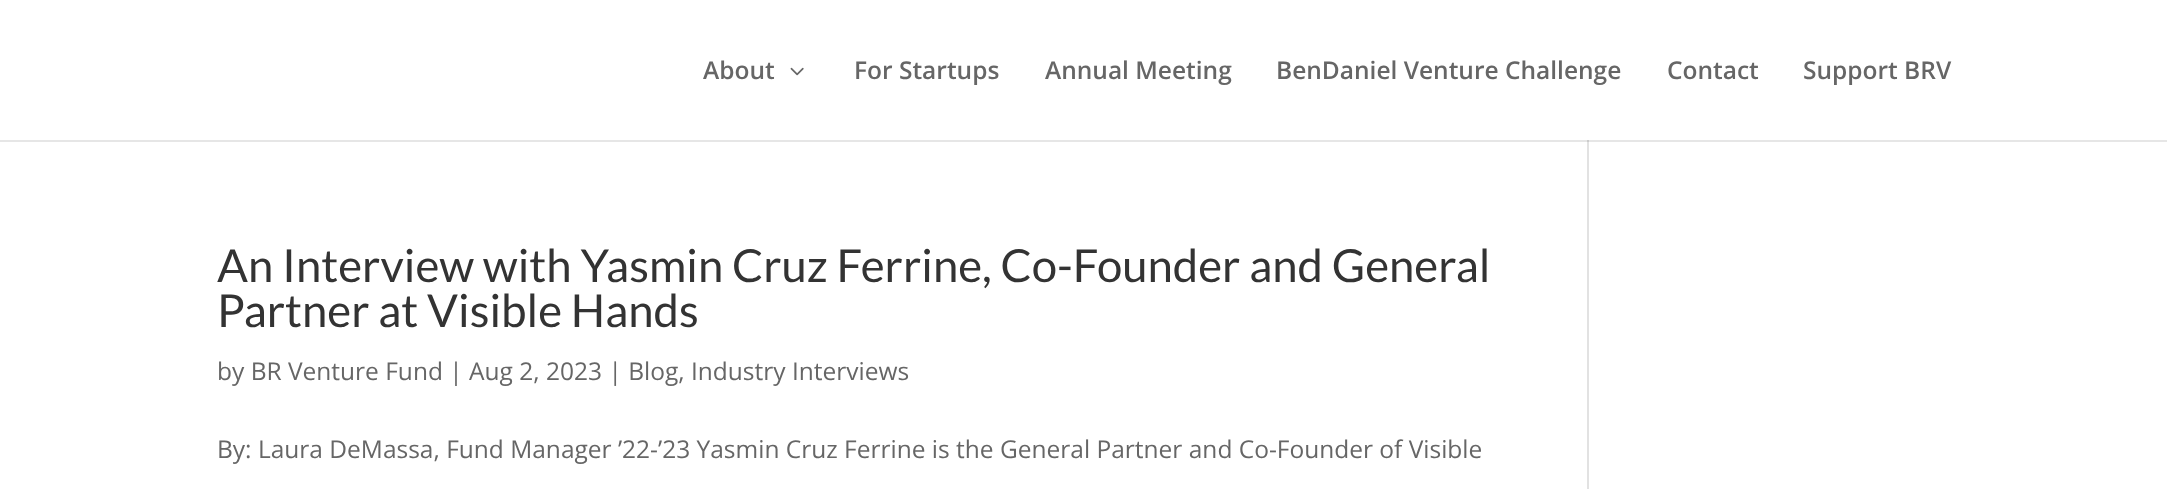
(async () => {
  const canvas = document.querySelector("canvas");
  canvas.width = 2167;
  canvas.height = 489;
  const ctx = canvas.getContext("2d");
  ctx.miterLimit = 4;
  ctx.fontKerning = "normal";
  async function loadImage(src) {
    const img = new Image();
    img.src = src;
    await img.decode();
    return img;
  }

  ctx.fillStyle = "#ffffff";
  ctx.fillRect(0, 0, 2167, 489);
  ctx.fillStyle = "#e6e6e6";
  ctx.fillRect(0, 140, 2167, 2);
  ctx.drawImage(await loadImage("img/1.png"), 790, 67, 14, 9);
  ctx.fillStyle = "#e2e2e2";
  ctx.fillRect(1587, 140, 2, 349);
  ctx.fillStyle = "#cbcbcb";
  ctx.fillRect(1587, 140, 2, 2);
  ctx.font = "600 24.5px Open Sans";
  ctx.fillStyle = "#666666";
  for (const [text, x, y] of [
    ["About", 703, 79],
    ["For Startups", 854, 79],
    ["Annual Meeting", 1045, 79],
    ["BenDaniel Venture Challenge", 1276, 79],
    ["Contact", 1667, 79],
    ["Support BRV", 1803, 79],
  ]) {
    ctx.fillText(text, x, y);
  }
  ctx.font = "45.5px Lato";
  ctx.fillStyle = "#333333";
  ctx.fillText("An Interview with Yasmin Cruz Ferrine, Co-Founder and General", 217, 282);
  ctx.fillText("Partner at Visible Hands", 217, 327);
  ctx.font = "24.5px Open Sans";
  ctx.fillStyle = "#666666";
  ctx.fillText("by BR Venture Fund | Aug 2, 2023 | Blog, Industry Interviews", 217, 380);
  ctx.fillText("By: Laura DeMassa, Fund Manager ’22-’23 Yasmin Cruz Ferrine is the General Partner and Co-Founder of Visible", 217, 458);
})();
